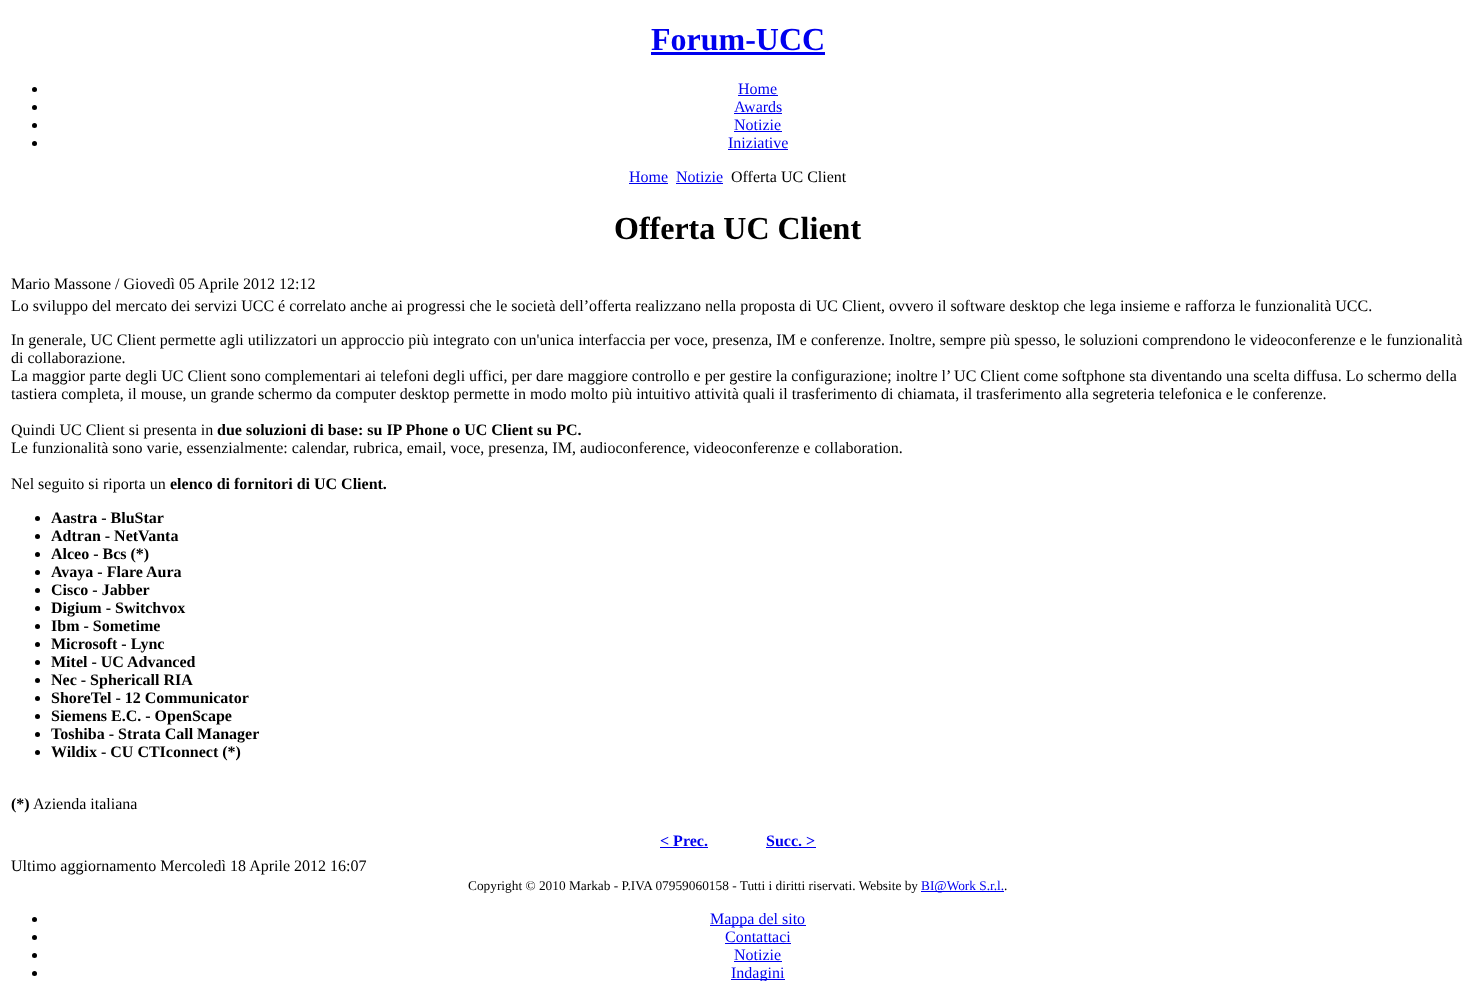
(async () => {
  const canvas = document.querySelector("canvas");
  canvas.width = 1476;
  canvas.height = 981;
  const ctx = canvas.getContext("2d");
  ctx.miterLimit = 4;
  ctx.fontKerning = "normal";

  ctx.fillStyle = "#ffffff";
  ctx.fillRect(0, 0, 1476, 981);
  ctx.fillStyle = "#0000ee";
  ctx.fillRect(651, 52, 174, 3);
  ctx.fillStyle = "#000000";
  ctx.beginPath();
  ctx.arc(34.5, 89.5, 2.5, 0, Math.PI * 2);
  ctx.fill();
  ctx.fillStyle = "#0000ee";
  ctx.fillRect(738, 95, 40, 1);
  ctx.fillStyle = "#000000";
  ctx.beginPath();
  ctx.arc(34.5, 107.5, 2.5, 0, Math.PI * 2);
  ctx.fill();
  ctx.fillStyle = "#0000ee";
  ctx.fillRect(734, 113, 48, 1);
  ctx.fillStyle = "#000000";
  ctx.beginPath();
  ctx.arc(34.5, 125.5, 2.5, 0, Math.PI * 2);
  ctx.fill();
  ctx.fillStyle = "#0000ee";
  ctx.fillRect(734, 131, 48, 1);
  ctx.fillStyle = "#000000";
  ctx.beginPath();
  ctx.arc(34.5, 143.5, 2.5, 0, Math.PI * 2);
  ctx.fill();
  for (const [x, y, w, h, color] of [
    [728, 149, 60, 1, "#0000ee"],
    [629, 183, 39, 1, "#0000ee"],
    [676, 183, 47, 1, "#0000ee"],
  ]) {
    ctx.fillStyle = color;
    ctx.fillRect(x, y, w, h);
  }
  ctx.fillStyle = "#000000";
  ctx.beginPath();
  ctx.arc(37.5, 518.5, 2.5, 0, Math.PI * 2);
  ctx.fill();
  ctx.beginPath();
  ctx.arc(37.5, 536.5, 2.5, 0, Math.PI * 2);
  ctx.fill();
  ctx.beginPath();
  ctx.arc(37.5, 554.5, 2.5, 0, Math.PI * 2);
  ctx.fill();
  ctx.beginPath();
  ctx.arc(37.5, 572.5, 2.5, 0, Math.PI * 2);
  ctx.fill();
  ctx.beginPath();
  ctx.arc(37.5, 590.5, 2.5, 0, Math.PI * 2);
  ctx.fill();
  ctx.beginPath();
  ctx.arc(37.5, 608.5, 2.5, 0, Math.PI * 2);
  ctx.fill();
  ctx.beginPath();
  ctx.arc(37.5, 626.5, 2.5, 0, Math.PI * 2);
  ctx.fill();
  ctx.beginPath();
  ctx.arc(37.5, 644.5, 2.5, 0, Math.PI * 2);
  ctx.fill();
  ctx.beginPath();
  ctx.arc(37.5, 662.5, 2.5, 0, Math.PI * 2);
  ctx.fill();
  ctx.beginPath();
  ctx.arc(37.5, 680.5, 2.5, 0, Math.PI * 2);
  ctx.fill();
  ctx.beginPath();
  ctx.arc(37.5, 698.5, 2.5, 0, Math.PI * 2);
  ctx.fill();
  ctx.beginPath();
  ctx.arc(37.5, 716.5, 2.5, 0, Math.PI * 2);
  ctx.fill();
  ctx.beginPath();
  ctx.arc(37.5, 734.5, 2.5, 0, Math.PI * 2);
  ctx.fill();
  ctx.beginPath();
  ctx.arc(37.5, 752.5, 2.5, 0, Math.PI * 2);
  ctx.fill();
  for (const [x, y, w, h, color] of [
    [660, 847, 48, 1, "#0000ee"],
    [766, 847, 50, 1, "#0000ee"],
    [921, 891, 83, 1, "#0000ee"],
  ]) {
    ctx.fillStyle = color;
    ctx.fillRect(x, y, w, h);
  }
  ctx.fillStyle = "#000000";
  ctx.beginPath();
  ctx.arc(34.5, 919.5, 2.5, 0, Math.PI * 2);
  ctx.fill();
  ctx.fillStyle = "#0000ee";
  ctx.fillRect(710, 925, 96, 1);
  ctx.fillStyle = "#000000";
  ctx.beginPath();
  ctx.arc(34.5, 937.5, 2.5, 0, Math.PI * 2);
  ctx.fill();
  ctx.fillStyle = "#0000ee";
  ctx.fillRect(725, 943, 66, 1);
  ctx.fillStyle = "#000000";
  ctx.beginPath();
  ctx.arc(34.5, 955.5, 2.5, 0, Math.PI * 2);
  ctx.fill();
  ctx.fillStyle = "#0000ee";
  ctx.fillRect(734, 961, 48, 1);
  ctx.fillStyle = "#000000";
  ctx.beginPath();
  ctx.arc(34.5, 973.5, 2.5, 0, Math.PI * 2);
  ctx.fill();
  ctx.fillStyle = "#0000ee";
  ctx.fillRect(731, 979, 54, 1);
  ctx.font = "bold 32px Liberation Serif";
  ctx.fillText("Forum-UCC", 651, 50);
  ctx.font = "16px Liberation Serif";
  for (const [text, x, y] of [
    ["Home", 738, 94],
    ["Awards", 734, 112],
    ["Notizie", 734, 130],
    ["Iniziative", 728, 148],
    ["Home", 629, 182],
    ["Notizie", 676, 182],
  ]) {
    ctx.fillText(text, x, y);
  }
  ctx.fillStyle = "#000000";
  ctx.fillText("Offerta UC Client", 731, 182);
  ctx.font = "bold 32px Liberation Serif";
  ctx.fillText("Offerta UC Client", 614, 239);
  ctx.font = "16px Liberation Serif";
  for (const [text, x, y] of [
    ["Mario Massone / Giovedì 05 Aprile 2012 12:12", 11, 289],
    ["Lo sviluppo del mercato dei servizi UCC é correlato anche ai progressi che le società dell’offerta realizzano nella proposta di UC Client, ovvero il software desktop che lega insieme e rafforza le funzionalità UCC.", 11, 311],
    ["In generale, UC Client permette agli utilizzatori un approccio più integrato con un'unica interfaccia per voce, presenza, IM e conferenze. Inoltre, sempre più spesso, le soluzioni comprendono le videoconferenze e le funzionalità", 11, 345],
    ["di collaborazione.", 11, 363],
    ["La maggior parte degli UC Client sono complementari ai telefoni degli uffici, per dare maggiore controllo e per gestire la configurazione; inoltre l’ UC Client come softphone sta diventando una scelta diffusa. Lo schermo della", 11, 381],
    ["tastiera completa, il mouse, un grande schermo da computer desktop permette in modo molto più intuitivo attività quali il trasferimento di chiamata, il trasferimento alla segreteria telefonica e le conferenze.", 11, 399],
    ["Quindi UC Client si presenta in", 11, 435],
  ]) {
    ctx.fillText(text, x, y);
  }
  ctx.font = "bold 16px Liberation Serif";
  ctx.fillText("due soluzioni di base: su IP Phone o UC Client su PC.", 217, 435);
  ctx.font = "16px Liberation Serif";
  ctx.fillText("Le funzionalità sono varie, essenzialmente: calendar, rubrica, email, voce, presenza, IM, audioconference, videoconferenze e collaboration.", 11, 453);
  ctx.fillText("Nel seguito si riporta un", 11, 489);
  ctx.font = "bold 16px Liberation Serif";
  for (const [text, x, y] of [
    ["elenco di fornitori di UC Client.", 170, 489],
    ["Aastra - BluStar", 51, 523],
    ["Adtran - NetVanta", 51, 541],
    ["Alceo - Bcs (*)", 51, 559],
    ["Avaya - Flare Aura", 51, 577],
    ["Cisco - Jabber", 51, 595],
    ["Digium - Switchvox", 51, 613],
    ["Ibm - Sometime", 51, 631],
    ["Microsoft - Lync", 51, 649],
    ["Mitel - UC Advanced", 51, 667],
    ["Nec - Sphericall RIA", 51, 685],
    ["ShoreTel - 12 Communicator", 51, 703],
    ["Siemens E.C. - OpenScape", 51, 721],
    ["Toshiba - Strata Call Manager", 51, 739],
    ["Wildix - CU CTIconnect (*)", 51, 757],
    ["(*)", 11, 809],
  ]) {
    ctx.fillText(text, x, y);
  }
  ctx.font = "16px Liberation Serif";
  ctx.fillText("Azienda italiana", 33, 809);
  ctx.font = "bold 16px Liberation Serif";
  ctx.fillStyle = "#0000ee";
  ctx.fillText("< Prec.", 660, 846);
  ctx.fillText("Succ. >", 766, 846);
  ctx.font = "16px Liberation Serif";
  ctx.fillStyle = "#000000";
  ctx.fillText("Ultimo aggiornamento Mercoledì 18 Aprile 2012 16:07", 11, 871);
  ctx.font = "13.35px Liberation Serif";
  ctx.fillText("Copyright © 2010 Markab - P.IVA 07959060158 - Tutti i diritti riservati. Website by", 468, 890);
  ctx.fillStyle = "#0000ee";
  ctx.fillText("BI@Work S.r.l.", 921, 890);
  ctx.fillStyle = "#000000";
  ctx.fillText(".", 1004, 890);
  ctx.font = "16px Liberation Serif";
  ctx.fillStyle = "#0000ee";
  for (const [text, x, y] of [
    ["Mappa del sito", 710, 924],
    ["Contattaci", 725, 942],
    ["Notizie", 734, 960],
    ["Indagini", 731, 978],
  ]) {
    ctx.fillText(text, x, y);
  }
})();
